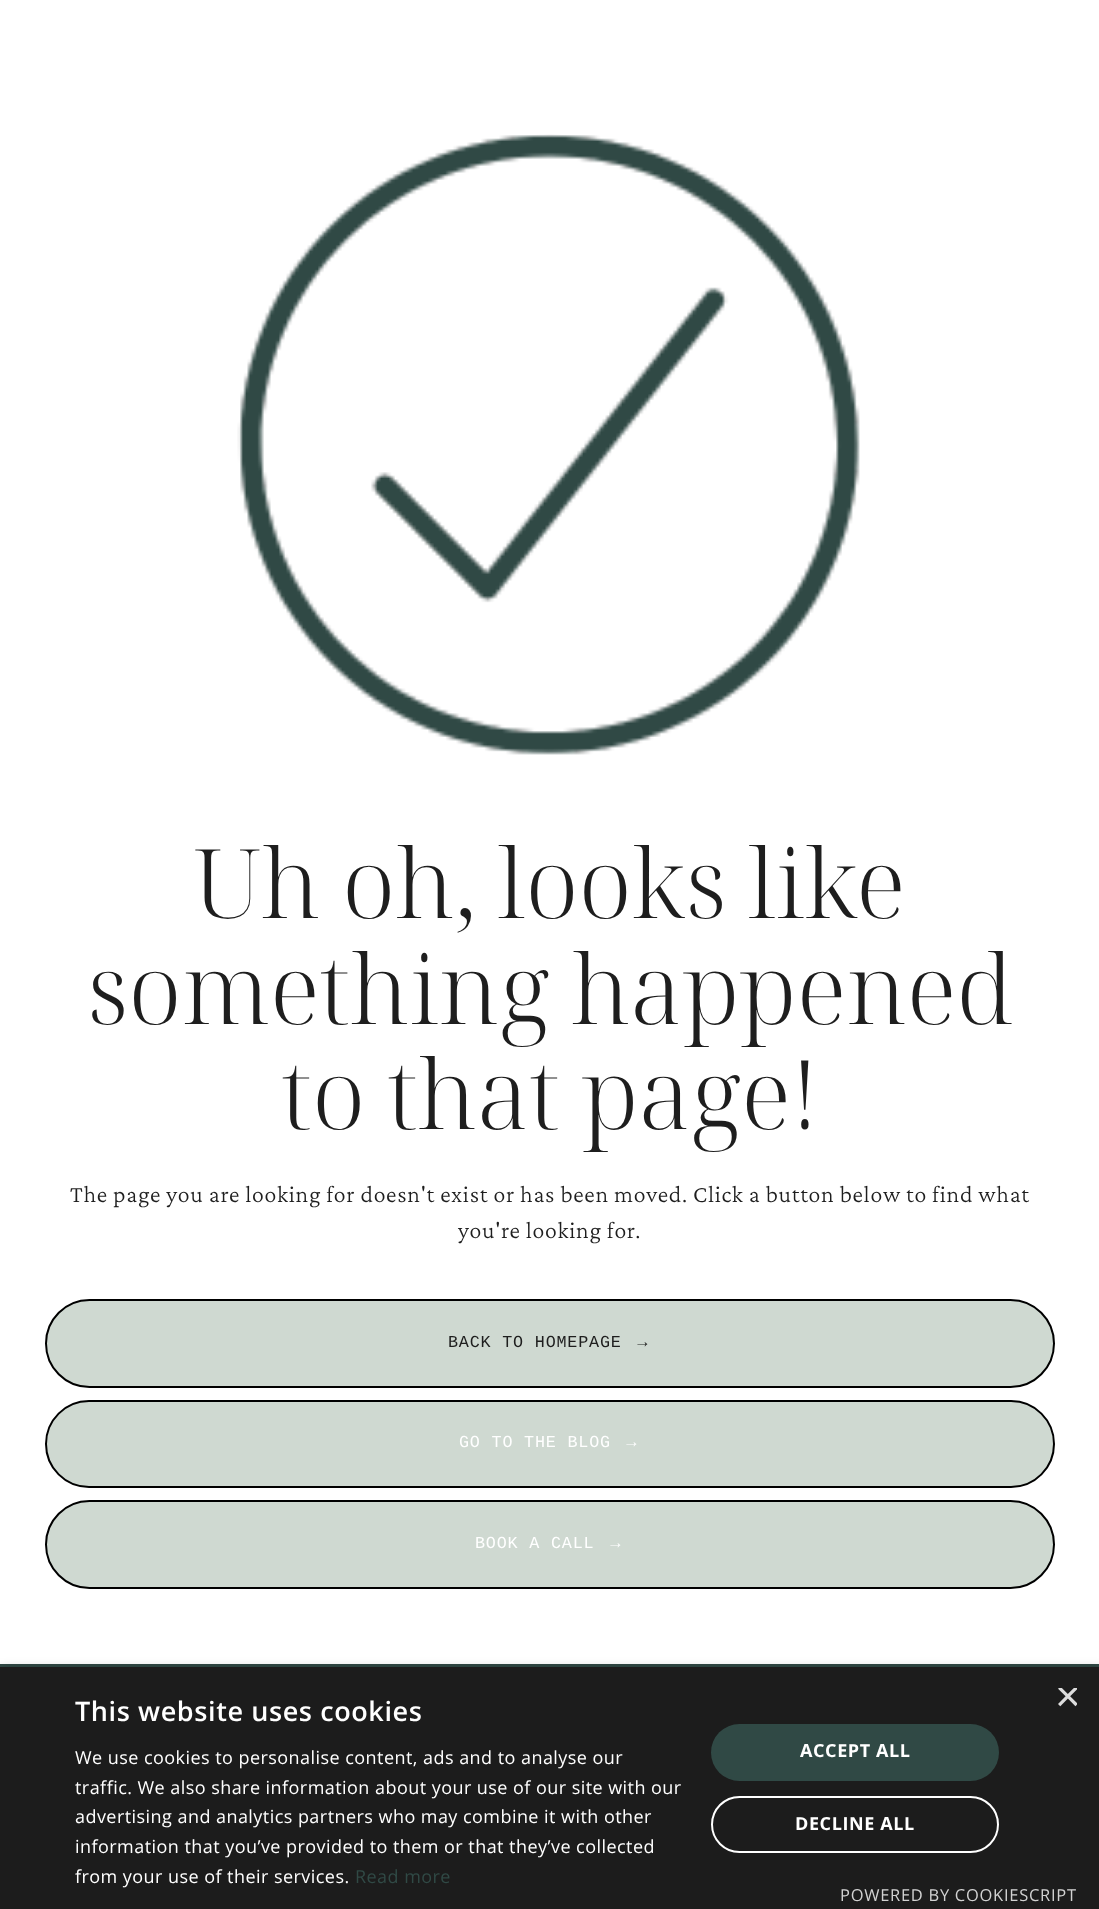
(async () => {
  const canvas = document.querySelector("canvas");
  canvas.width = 1099;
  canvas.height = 1909;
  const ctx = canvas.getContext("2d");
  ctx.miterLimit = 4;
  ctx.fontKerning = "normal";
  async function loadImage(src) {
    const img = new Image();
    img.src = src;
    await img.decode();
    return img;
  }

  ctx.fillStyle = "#ffffff";
  ctx.fillRect(0, 0, 1099, 1909);
  ctx.drawImage(await loadImage("img/1.png"), 237, 134, 623, 621);
  ctx.fillStyle = "#cfd9d1";
  ctx.beginPath();
  ctx.roundRect(46, 1300, 1008, 87, 43.5);
  ctx.fill();
  ctx.strokeStyle = "#000000";
  ctx.lineWidth = 2;
  ctx.stroke();
  ctx.beginPath();
  ctx.roundRect(46, 1401, 1008, 86, 43);
  ctx.fill();
  ctx.stroke();
  ctx.beginPath();
  ctx.roundRect(46, 1501, 1008, 87, 43.5);
  ctx.fill();
  ctx.stroke();
  ctx.fillStyle = "#304945";
  ctx.fillRect(0, 1664, 1099, 3);
  ctx.fillStyle = "rgba(0, 0, 0, 0.35)";
  ctx.filter = "blur(6px)";
  ctx.beginPath();
  ctx.rect(2, 1670, 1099, 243);
  ctx.fill();
  ctx.filter = "none";
  ctx.fillStyle = "#1c1c1c";
  ctx.fillRect(0, 1667, 1099, 242);
  ctx.fillStyle = "#304945";
  ctx.beginPath();
  ctx.roundRect(711, 1724, 288, 57, 28.5);
  ctx.fill();
  ctx.beginPath();
  ctx.roundRect(712, 1797, 286, 55, 27.5);
  ctx.strokeStyle = "#ffffff";
  ctx.stroke();
  ctx.font = "300 96px Noto Serif Display";
  ctx.fillStyle = "#1e1e1e";
  for (const [text, x, y] of [
    ["Uh oh, looks like", 194, 918],
    ["something happened", 87, 1024],
    ["to that page!", 281, 1129],
  ]) {
    ctx.fillText(text, x, y);
  }
  ctx.letterSpacing = "0.72px";
  ctx.font = "300 24px Crimson Pro";
  ctx.fillText("The page you are looking for doesn't exist or has been moved. Click a button below to find what", 70, 1202);
  ctx.fillText("you're looking for.", 458, 1238);
  ctx.letterSpacing = "0.8px";
  ctx.font = "16.75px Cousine";
  ctx.fillText("BACK TO HOMEPAGE", 448, 1347);
  ctx.font = "16.75px Liberation Sans";
  ctx.fillText("→", 634, 1347);
  ctx.font = "16.75px Cousine";
  ctx.fillStyle = "#ffffff";
  ctx.fillText("GO TO THE BLOG", 459, 1447);
  ctx.font = "16.75px Liberation Sans";
  ctx.fillText("→", 623, 1447);
  ctx.font = "16.75px Cousine";
  ctx.fillText("BOOK A CALL", 475, 1548);
  ctx.font = "16.75px Liberation Sans";
  ctx.fillText("→", 607, 1548);
  ctx.save();
  ctx.beginPath();
  ctx.rect(1055, 1688, 22, 22);
  ctx.clip();
  ctx.letterSpacing = "0px";
  ctx.font = "44px Liberation Sans";
  ctx.fillStyle = "#dddddd";
  ctx.fillText("×", 1055, 1711);
  ctx.restore();
  ctx.letterSpacing = "0.6px";
  ctx.font = "600 27px Open Sans";
  ctx.fillText("This website uses cookies", 75, 1721);
  ctx.letterSpacing = "0.45px";
  ctx.font = "18px Open Sans";
  for (const [text, x, y] of [
    ["We use cookies to personalise content, ads and to analyse our", 75, 1764],
    ["traffic. We also share information about your use of our site with our", 75, 1794],
    ["advertising and analytics partners who may combine it with other", 75, 1823],
    ["information that you’ve provided to them or that they’ve collected", 75, 1853],
    ["from your use of their services.", 75, 1883],
  ]) {
    ctx.fillText(text, x, y);
  }
  ctx.fillStyle = "#304945";
  ctx.fillText("Read more", 355, 1883);
  ctx.letterSpacing = "0.6px";
  ctx.font = "bold 18px Open Sans";
  ctx.fillStyle = "#ffffff";
  ctx.fillText("ACCEPT ALL", 800, 1757);
  ctx.fillText("DECLINE ALL", 795, 1830);
  ctx.letterSpacing = "0.72px";
  ctx.font = "16.5px Open Sans";
  ctx.fillStyle = "#d2d2d2";
  ctx.fillText("POWERED BY COOKIESCRIPT", 840, 1901);
})();
